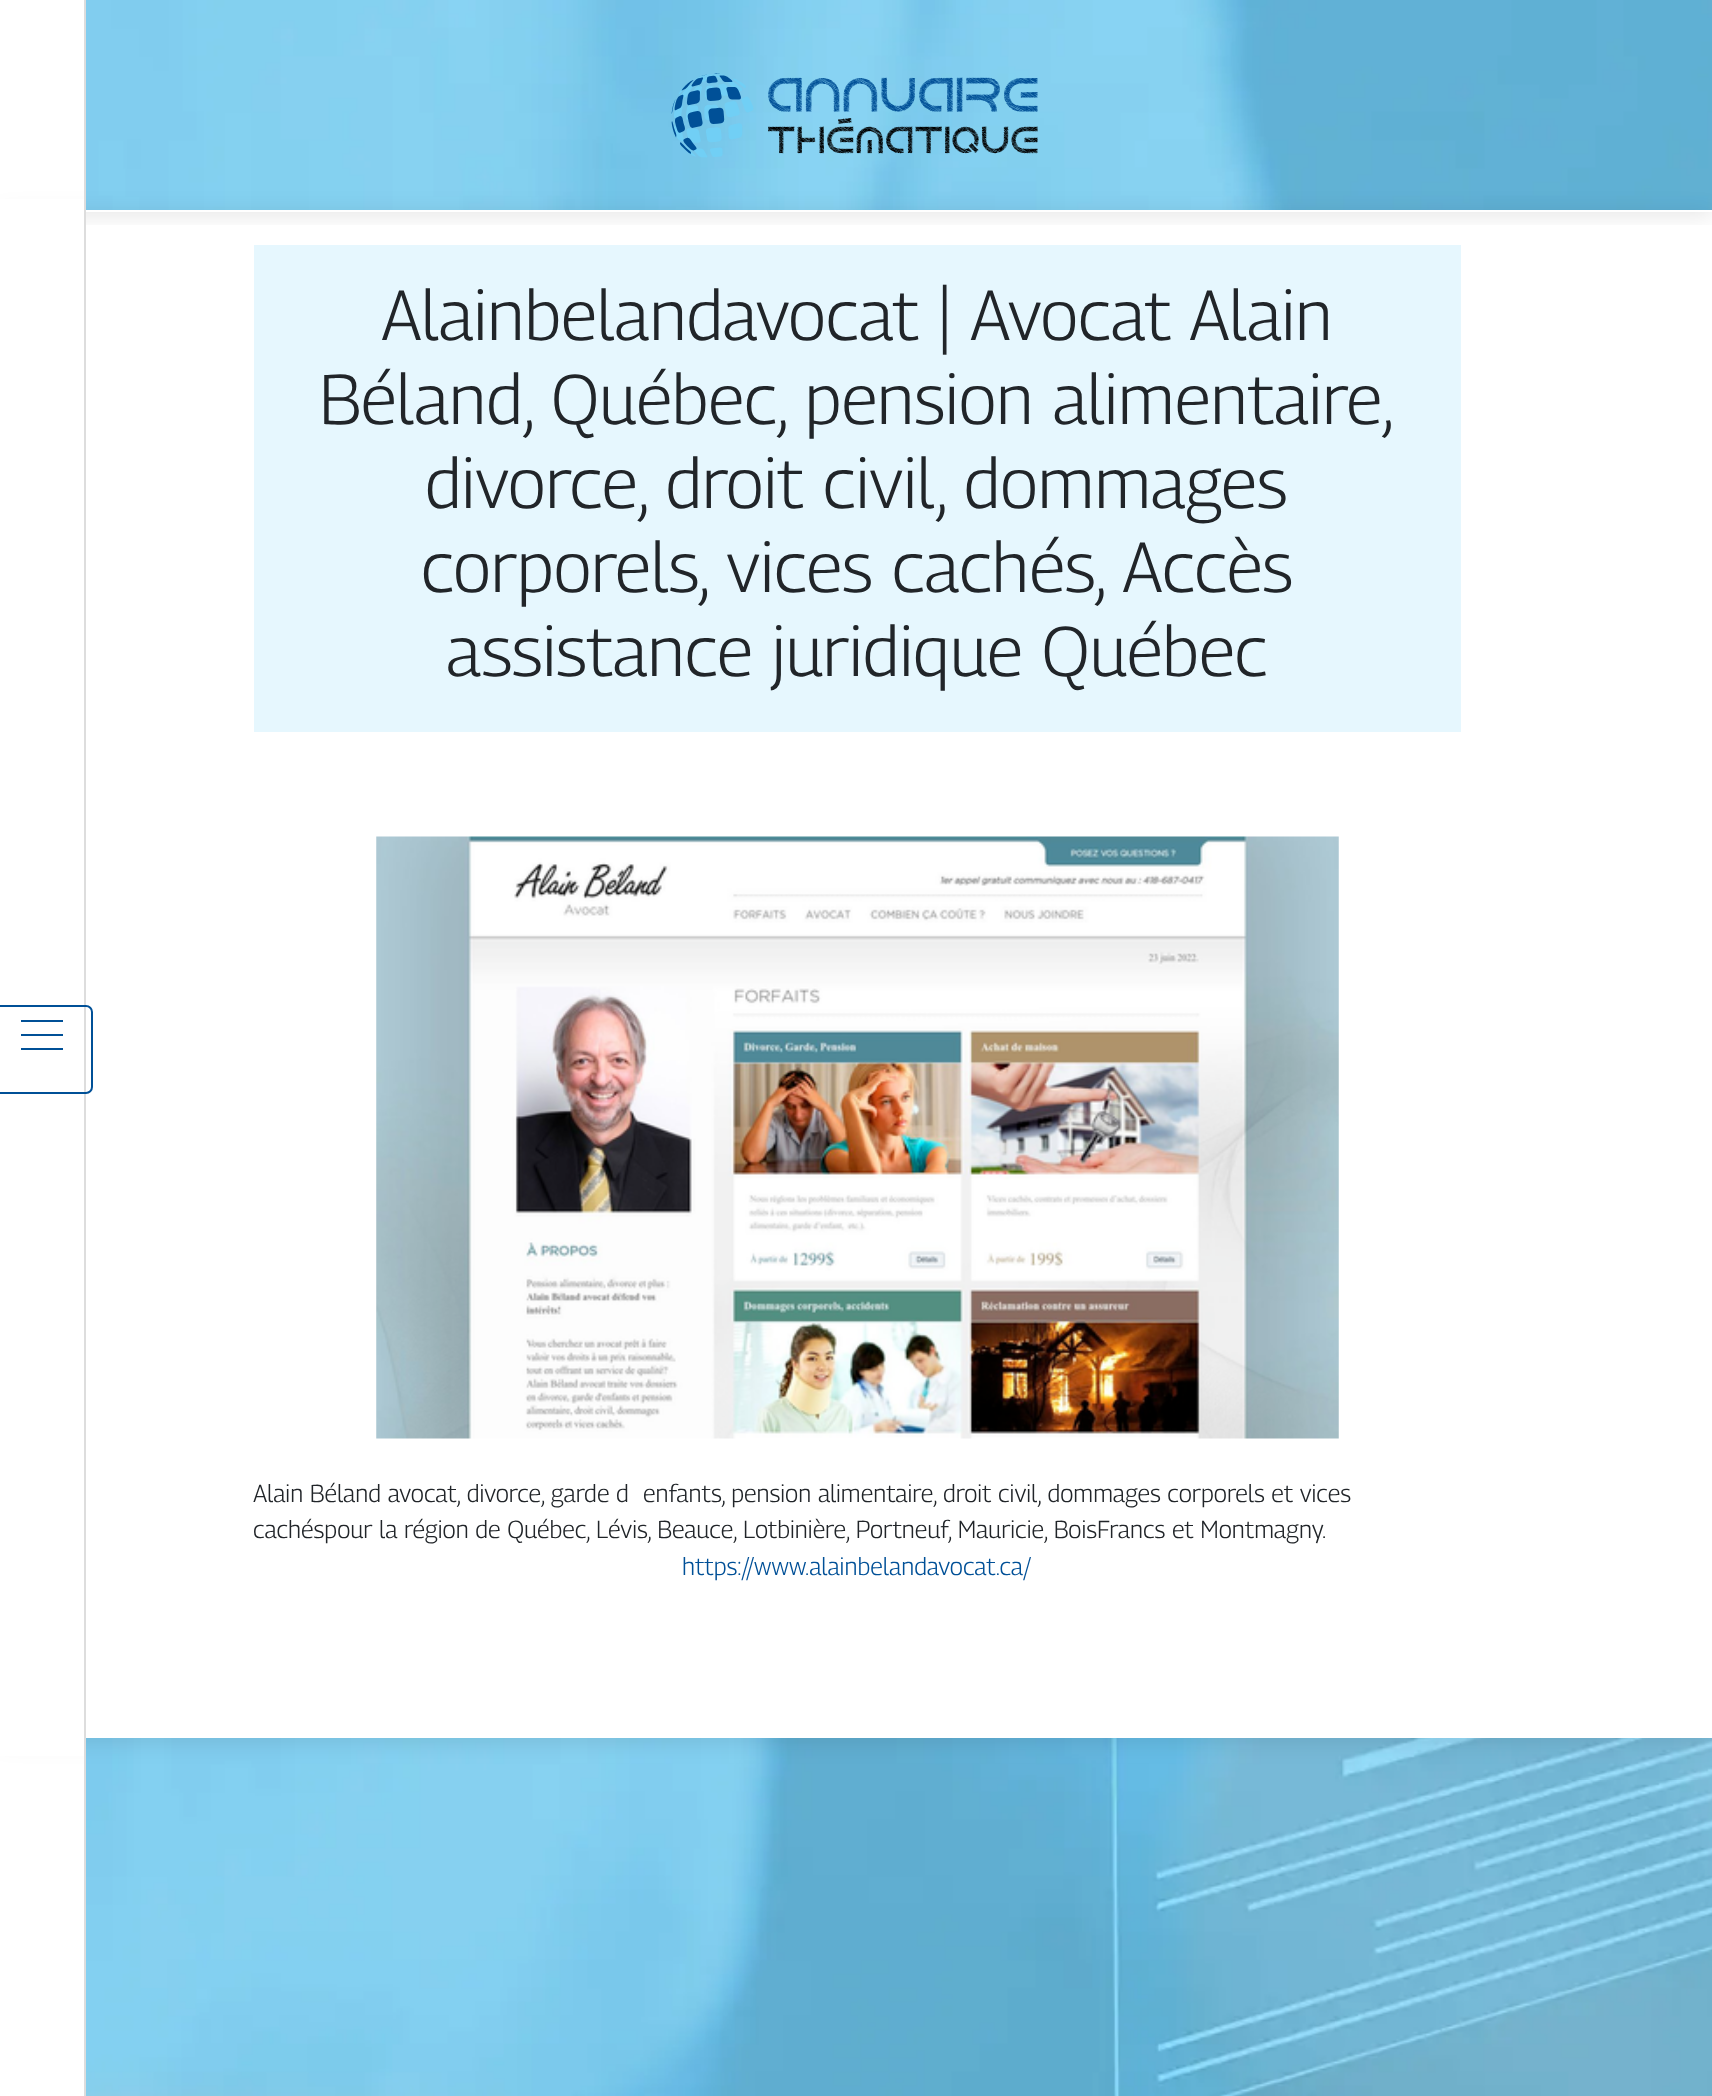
(async () => {
  const canvas = document.querySelector("canvas");
  canvas.width = 1712;
  canvas.height = 2096;
  const ctx = canvas.getContext("2d");
  ctx.miterLimit = 4;
  ctx.fontKerning = "normal";
  async function loadImage(src) {
    const img = new Image();
    img.src = src;
    await img.decode();
    return img;
  }

  ctx.fillStyle = "#ffffff";
  ctx.fillRect(0, 0, 1712, 2096);
  ctx.drawImage(await loadImage("img/1.png"), 86, 0, 1626, 2096);
  ctx.fillStyle = "rgba(0, 0, 0, 0.1)";
  ctx.filter = "blur(11.5px)";
  ctx.beginPath();
  ctx.rect(0, 214, 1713, 1527);
  ctx.fill();
  ctx.filter = "none";
  ctx.fillStyle = "#ffffff";
  ctx.fillRect(86, 210, 1626, 1528);
  ctx.fillStyle = "#e6f7fe";
  ctx.fillRect(254, 245, 1207, 487);
  ctx.save();
  ctx.beginPath();
  ctx.rect(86, 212, 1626, 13);
  ctx.clip();
  ctx.fillStyle = "rgba(0, 0, 0, 0.1)";
  ctx.filter = "blur(11.5px)";
  ctx.beginPath();
  ctx.rect(0, 4, 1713, 211);
  ctx.fill();
  ctx.filter = "none";
  ctx.restore();
  ctx.fillStyle = "#ffffff";
  ctx.fillRect(0, 199, 84, 1557);
  ctx.fillStyle = "#dddddd";
  ctx.fillRect(84, 0, 2, 2096);
  ctx.beginPath();
  ctx.roundRect(-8, 1006, 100, 87, 6);
  ctx.strokeStyle = "#005097";
  ctx.lineWidth = 2;
  ctx.stroke();
  for (const [x, y, w, h, color] of [
    [21, 1020, 42, 2, "#005097"],
    [21, 1034, 42, 2, "#005097"],
    [21, 1048, 42, 2, "#005097"],
  ]) {
    ctx.fillStyle = color;
    ctx.fillRect(x, y, w, h);
  }
  ctx.drawImage(await loadImage("img/2.png"), 671, 73, 367, 85);
  ctx.drawImage(await loadImage("img/3.png"), 376, 836, 963, 603);
  ctx.font = "100 70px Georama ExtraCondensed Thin";
  ctx.fillStyle = "#212529";
  for (const [text, x, y] of [
    ["Alainbelandavocat | Avocat Alain", 381, 340],
    ["Béland, Québec, pension alimentaire,", 319, 424],
    ["divorce, droit civil, dommages", 425, 508],
    ["corporels, vices cachés, Accès", 421, 592],
    ["assistance juridique Québec", 446, 676],
  ]) {
    ctx.fillText(text, x, y);
  }
  ctx.font = "100 24.5px Georama ExtraCondensed Thin";
  for (const [text, x, y] of [
    ["Alain Béland avocat, divorce, garde d", 253, 1502],
    ["enfants, pension alimentaire, droit civil, dommages corporels et vices", 643, 1502],
    ["cachéspour la région de Québec, Lévis, Beauce, Lotbinière, Portneuf, Mauricie, BoisFrancs et Montmagny.", 253, 1538],
  ]) {
    ctx.fillText(text, x, y);
  }
  ctx.fillStyle = "#005097";
  ctx.fillText("https://www.alainbelandavocat.ca/", 682, 1575);
})();
